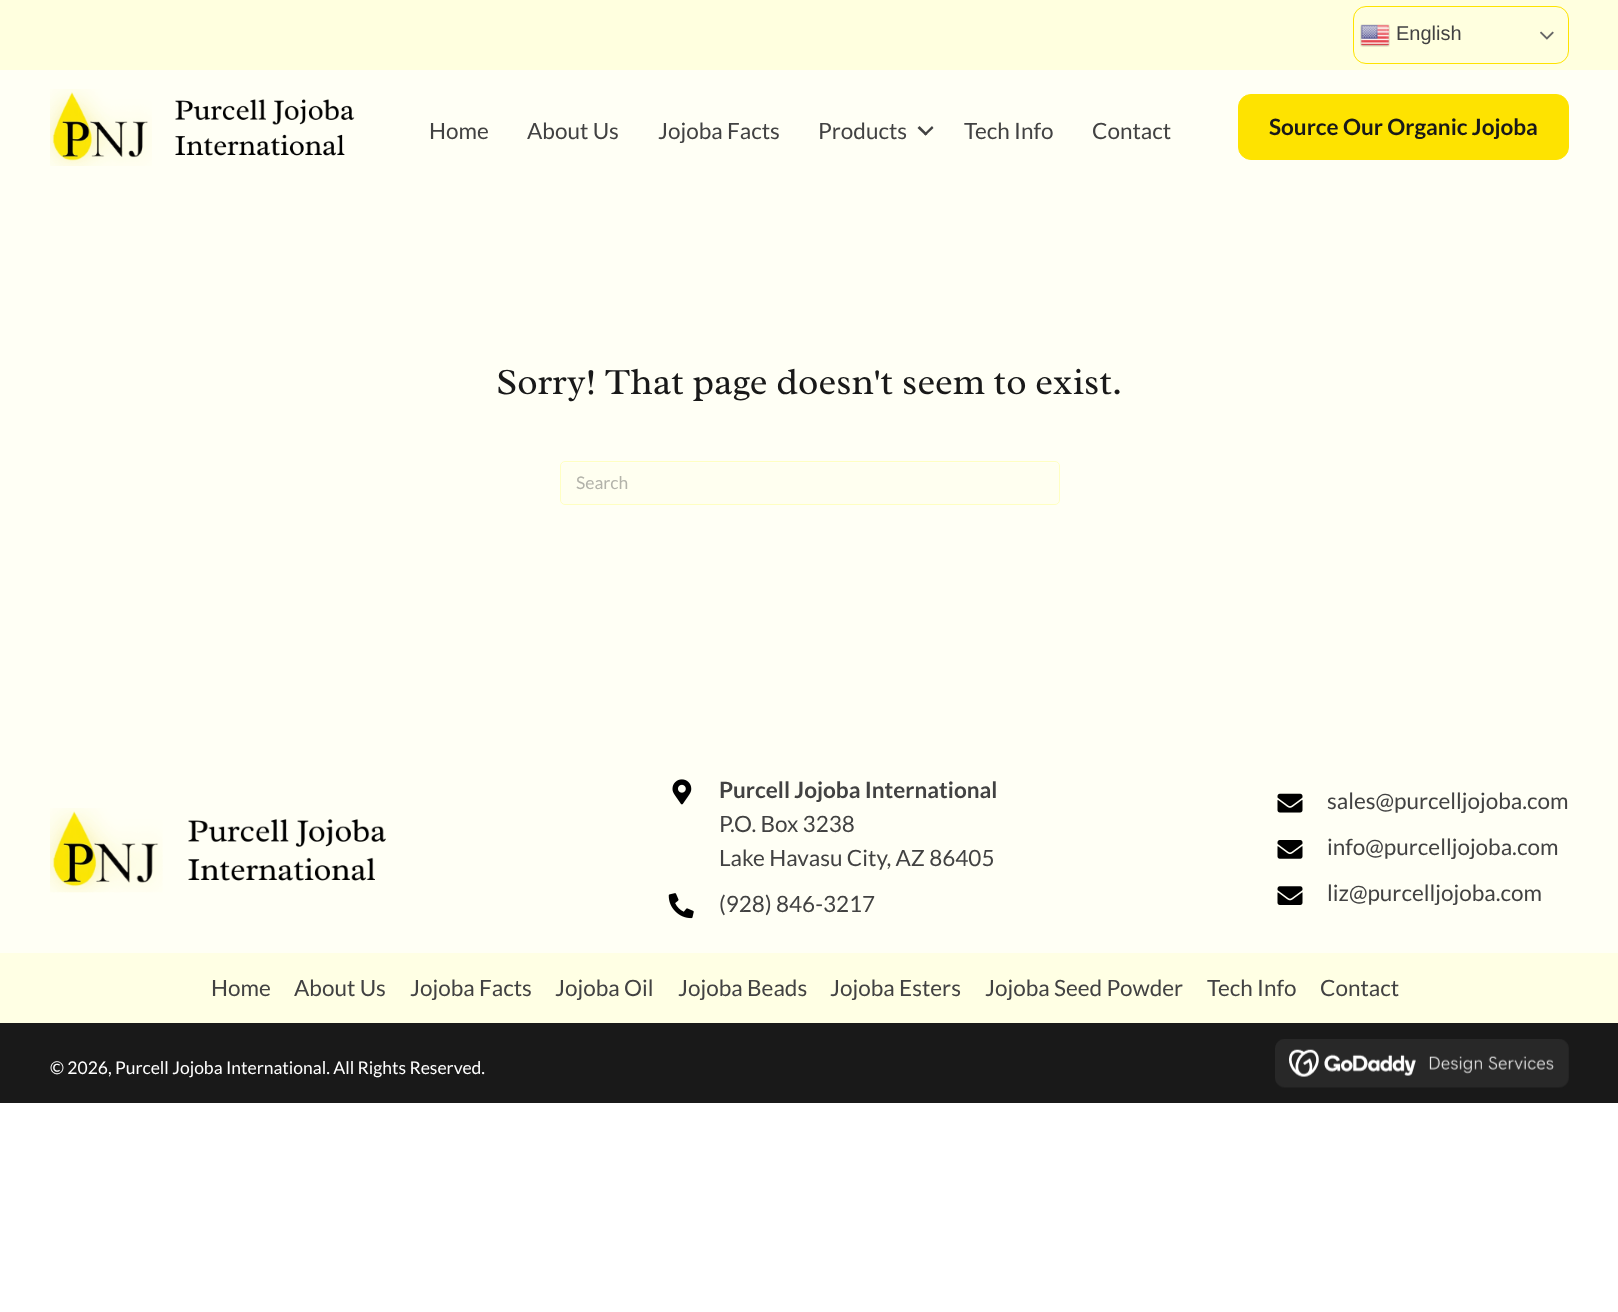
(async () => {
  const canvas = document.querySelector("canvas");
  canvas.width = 1618;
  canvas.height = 1312;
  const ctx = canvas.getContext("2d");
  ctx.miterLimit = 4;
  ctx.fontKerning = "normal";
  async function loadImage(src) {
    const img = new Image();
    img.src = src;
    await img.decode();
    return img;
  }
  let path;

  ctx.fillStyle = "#ffffff";
  ctx.fillRect(0, 0, 1618, 1312);
  ctx.fillStyle = "#ffffdf";
  ctx.fillRect(0, 0, 1618, 70);
  ctx.beginPath();
  ctx.roundRect(1353.5, 6.5, 215, 57, 12.5);
  ctx.strokeStyle = "#fee300";
  ctx.stroke();
  ctx.drawImage(await loadImage("img/1.png"), 1360, 24, 30, 23);
  ctx.drawImage(await loadImage("img/2.png"), 1540, 31, 14, 9);
  ctx.fillStyle = "#fffff5";
  ctx.fillRect(0, 70, 1618, 883);
  ctx.drawImage(await loadImage("img/3.png"), 50, 89, 305, 77);
  ctx.fillStyle = "#424242";
  path = new Path2D("M932 126L933.5 128L925.5 135.5L924 134Z");
  ctx.fill(path);
  path = new Path2D("M919.5 126L927.5 134L925.5 135.5L917.5 128Z");
  ctx.fill(path);
  ctx.fillStyle = "#fee300";
  ctx.beginPath();
  ctx.roundRect(1238.5, 94.5, 330, 65, 12.5);
  ctx.fill();
  ctx.stroke();
  ctx.fillStyle = "#fffff0";
  ctx.beginPath();
  ctx.roundRect(561, 463, 498, 41, 4);
  ctx.fill();
  ctx.beginPath();
  ctx.roundRect(560.5, 461.5, 499, 43, 4.5);
  ctx.strokeStyle = "#ffffc2";
  ctx.stroke();
  ctx.drawImage(await loadImage("img/4.png"), 50, 808, 336, 85);
  ctx.drawImage(await loadImage("img/5.png"), 672, 779, 20, 26);
  ctx.drawImage(await loadImage("img/6.png"), 668, 893, 26, 26);
  ctx.drawImage(await loadImage("img/7.png"), 1277, 793, 26, 20);
  ctx.drawImage(await loadImage("img/8.png"), 1277, 840, 26, 19);
  ctx.drawImage(await loadImage("img/9.png"), 1277, 886, 26, 19);
  ctx.fillStyle = "#ffffe4";
  ctx.fillRect(0, 953, 1618, 70);
  ctx.fillStyle = "#191919";
  ctx.fillRect(0, 1023, 1618, 80);
  ctx.drawImage(await loadImage("img/10.png"), 1275, 1039, 294, 49);
  ctx.font = "20px Liberation Sans";
  ctx.fillStyle = "#424242";
  ctx.fillText("English", 1396, 40);
  ctx.font = "22.5px Lato";
  for (const [text, x, y] of [
    ["Home", 429, 139],
    ["About Us", 527, 139],
    ["Jojoba Facts", 658, 139],
    ["Products", 818, 139],
    ["Tech Info", 964, 139],
    ["Contact", 1092, 139],
  ]) {
    ctx.fillText(text, x, y);
  }
  ctx.font = "bold 22.5px Lato";
  ctx.fillStyle = "#191919";
  ctx.fillText("Source Our Organic Jojoba", 1269, 135);
  ctx.font = "37.5px Radley";
  ctx.fillText("Sorry! That page doesn't seem to exist.", 496, 394);
  ctx.font = "17.5px Lato";
  ctx.fillStyle = "#b3b3aa";
  ctx.fillText("Search", 576, 489);
  ctx.font = "bold 22.5px Lato";
  ctx.fillStyle = "#424242";
  ctx.fillText("Purcell Jojoba International", 719, 798);
  ctx.font = "22.5px Lato";
  for (const [text, x, y] of [
    ["P.O. Box 3238", 719, 832],
    ["Lake Havasu City, AZ 86405", 719, 866],
    ["(928) 846-3217", 719, 912],
    ["sales@purcelljojoba.com", 1327, 809],
    ["info@purcelljojoba.com", 1327, 855],
    ["liz@purcelljojoba.com", 1327, 901],
    ["Home", 211, 996],
    ["About Us", 294, 996],
    ["Jojoba Facts", 410, 996],
    ["Jojoba Oil", 555, 996],
    ["Jojoba Beads", 678, 996],
    ["Jojoba Esters", 830, 996],
    ["Jojoba Seed Powder", 985, 996],
    ["Tech Info", 1207, 996],
    ["Contact", 1320, 996],
  ]) {
    ctx.fillText(text, x, y);
  }
  ctx.font = "17.5px Lato";
  ctx.fillStyle = "#ffffff";
  ctx.fillText("© 2026, Purcell Jojoba International. All Rights Reserved.", 50, 1074);
})();
